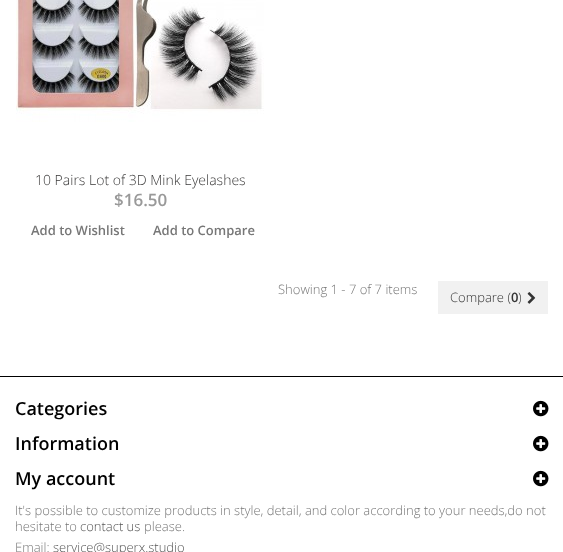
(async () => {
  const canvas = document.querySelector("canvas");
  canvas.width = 563;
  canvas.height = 552;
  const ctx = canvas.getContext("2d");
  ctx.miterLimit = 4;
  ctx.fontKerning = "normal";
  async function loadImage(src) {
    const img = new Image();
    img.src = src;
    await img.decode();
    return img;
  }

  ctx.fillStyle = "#ffffff";
  ctx.fillRect(0, 0, 563, 552);
  ctx.drawImage(await loadImage("img/1.png"), 16, 0, 248, 122);
  ctx.fillStyle = "#f1f1f1";
  ctx.fillRect(438, 281, 110, 33);
  ctx.drawImage(await loadImage("img/2.png"), 527, 292, 9, 12);
  ctx.fillStyle = "#000000";
  ctx.fillRect(0, 376, 563, 1);
  ctx.drawImage(await loadImage("img/3.png"), 533, 400, 16, 17);
  ctx.drawImage(await loadImage("img/3.png"), 533, 435, 16, 17);
  ctx.drawImage(await loadImage("img/3.png"), 533, 470, 16, 17);
  ctx.font = "300 14px Open Sans";
  ctx.fillStyle = "#3a3939";
  ctx.fillText("10 Pairs Lot of 3D Mink Eyelashes", 35, 185);
  ctx.font = "600 17px Open Sans";
  ctx.fillStyle = "#999999";
  ctx.fillText("$16.50", 114, 206);
  ctx.font = "600 13px Open Sans";
  ctx.fillStyle = "#777777";
  ctx.fillText("Add to Wishlist", 31, 235);
  ctx.fillText("Add to Compare", 153, 235);
  ctx.font = "300 13px Open Sans";
  ctx.fillText("Showing 1 - 7 of 7 items", 278, 294);
  ctx.fillStyle = "#333333";
  ctx.fillText("Compare (", 450, 302);
  ctx.font = "600 13px Open Sans";
  ctx.fillText("0", 511, 302);
  ctx.font = "300 13px Open Sans";
  ctx.fillText(")", 518, 302);
  ctx.font = "600 18px Open Sans";
  ctx.fillStyle = "#000000";
  for (const [text, x, y] of [
    ["Categories", 15, 415],
    ["Information", 15, 450],
    ["My account", 15, 485],
  ]) {
    ctx.fillText(text, x, y);
  }
  ctx.font = "300 13px Open Sans";
  ctx.fillStyle = "#777777";
  ctx.fillText("It's possible to customize products in style, detail, and color according to your needs,do not", 15, 515);
  ctx.fillText("hesitate to", 15, 531);
  ctx.fillStyle = "#555555";
  ctx.fillText("contact us", 80, 531);
  ctx.fillStyle = "#777777";
  ctx.fillText("please.", 144, 531);
  ctx.fillText("Email:", 15, 552);
  ctx.fillStyle = "#555555";
  ctx.fillText("service@superx.studio", 53, 552);
})();
